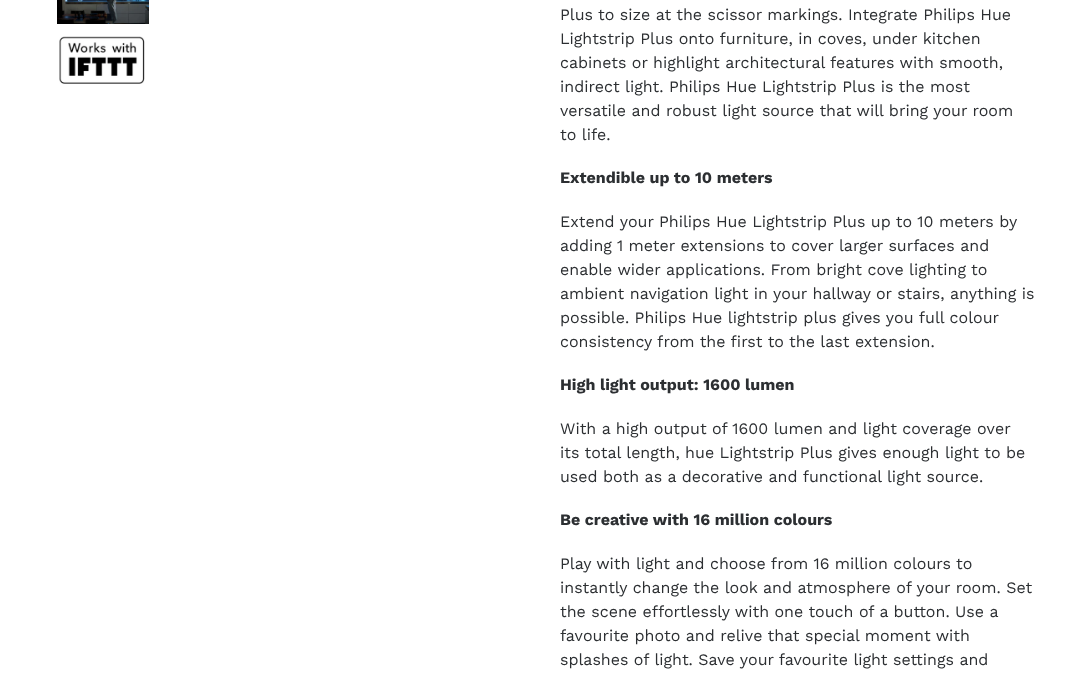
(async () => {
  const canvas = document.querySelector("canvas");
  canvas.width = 1089;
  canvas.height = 676;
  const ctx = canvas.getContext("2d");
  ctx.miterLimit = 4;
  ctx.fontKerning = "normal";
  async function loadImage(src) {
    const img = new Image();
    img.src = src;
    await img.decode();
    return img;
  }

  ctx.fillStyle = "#ffffff";
  ctx.fillRect(0, 0, 1089, 676);
  ctx.drawImage(await loadImage("img/1.png"), 57, 0, 92, 24);
  ctx.drawImage(await loadImage("img/2.png"), 59, 36, 86, 48);
  ctx.font = "16px Work Sans";
  ctx.fillStyle = "#2c2f32";
  for (const [text, x, y] of [
    ["Plus to size at the scissor markings. Integrate Philips Hue", 560, 20],
    ["Lightstrip Plus onto furniture, in coves, under kitchen", 560, 44],
    ["cabinets or highlight architectural features with smooth,", 560, 68],
    ["indirect light. Philips Hue Lightstrip Plus is the most", 560, 92],
    ["versatile and robust light source that will bring your room", 560, 116],
    ["to life.", 560, 140],
  ]) {
    ctx.fillText(text, x, y);
  }
  ctx.font = "bold 16px Work Sans";
  ctx.fillText("Extendible up to 10 meters", 560, 183);
  ctx.font = "16px Work Sans";
  for (const [text, x, y] of [
    ["Extend your Philips Hue Lightstrip Plus up to 10 meters by", 560, 227],
    ["adding 1 meter extensions to cover larger surfaces and", 560, 251],
    ["enable wider applications. From bright cove lighting to", 560, 275],
    ["ambient navigation light in your hallway or stairs, anything is", 560, 299],
    ["possible. Philips Hue lightstrip plus gives you full colour", 560, 323],
    ["consistency from the first to the last extension.", 560, 347],
  ]) {
    ctx.fillText(text, x, y);
  }
  ctx.font = "bold 16px Work Sans";
  ctx.fillText("High light output: 1600 lumen", 560, 390);
  ctx.font = "16px Work Sans";
  for (const [text, x, y] of [
    ["With a high output of 1600 lumen and light coverage over", 560, 434],
    ["its total length, hue Lightstrip Plus gives enough light to be", 560, 458],
    ["used both as a decorative and functional light source.", 560, 482],
  ]) {
    ctx.fillText(text, x, y);
  }
  ctx.font = "bold 16px Work Sans";
  ctx.fillText("Be creative with 16 million colours", 560, 525);
  ctx.font = "16px Work Sans";
  for (const [text, x, y] of [
    ["Play with light and choose from 16 million colours to", 560, 569],
    ["instantly change the look and atmosphere of your room. Set", 560, 593],
    ["the scene effortlessly with one touch of a button. Use a", 560, 617],
    ["favourite photo and relive that special moment with", 560, 641],
    ["splashes of light. Save your favourite light settings and", 560, 665],
  ]) {
    ctx.fillText(text, x, y);
  }
})();
